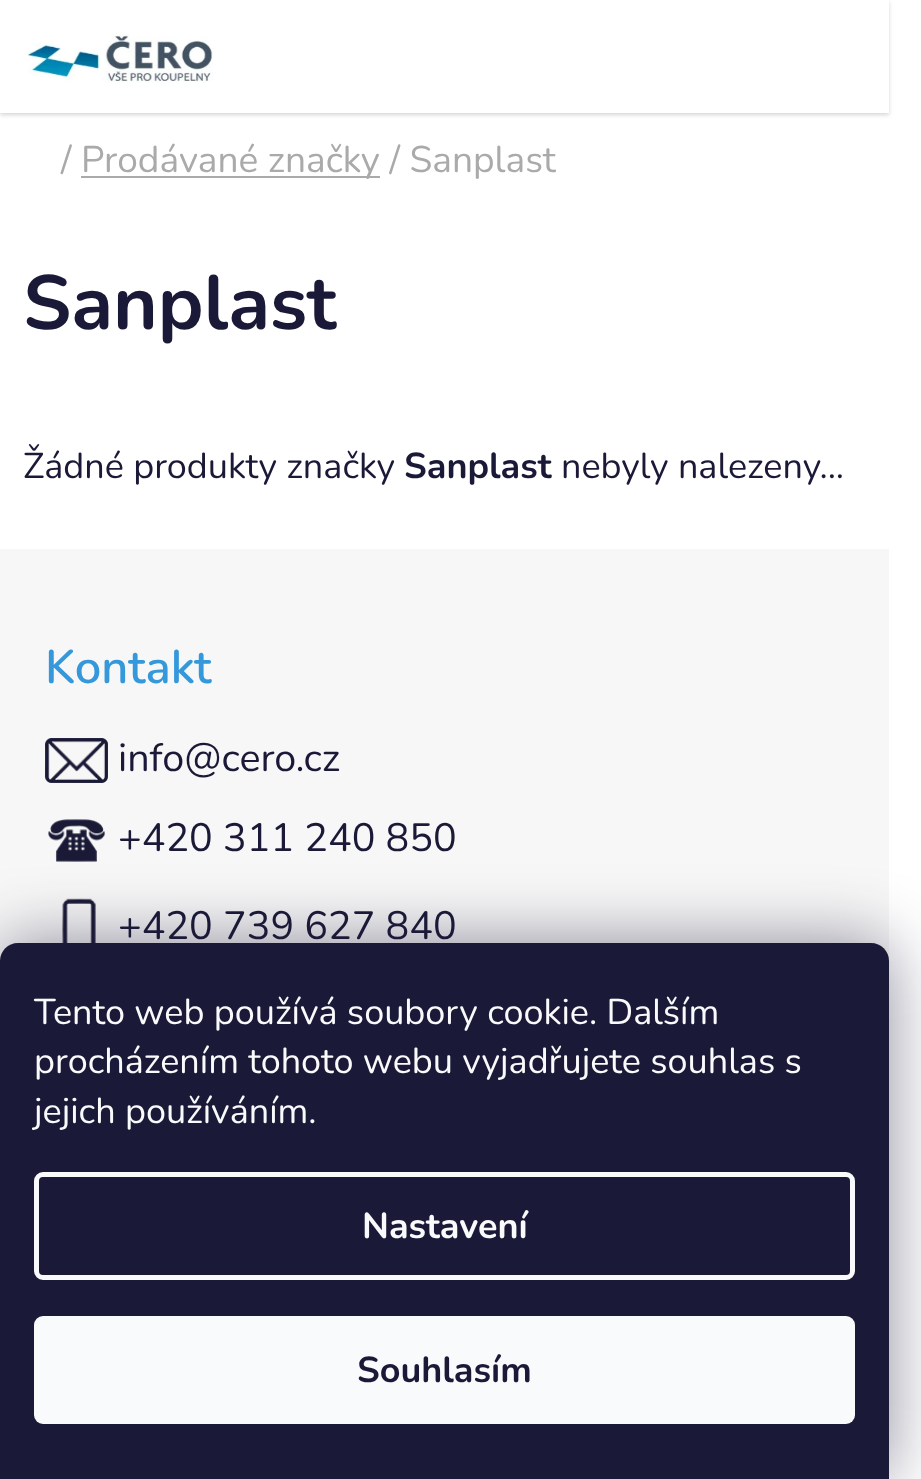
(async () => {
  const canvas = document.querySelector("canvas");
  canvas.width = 921;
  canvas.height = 1479;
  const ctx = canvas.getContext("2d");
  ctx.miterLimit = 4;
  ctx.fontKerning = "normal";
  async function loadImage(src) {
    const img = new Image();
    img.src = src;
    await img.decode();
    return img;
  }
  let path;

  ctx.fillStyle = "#ffffff";
  ctx.fillRect(0, 0, 921, 1479);
  ctx.fillStyle = "rgba(0, 0, 0, 0.16)";
  ctx.filter = "blur(2px)";
  ctx.beginPath();
  ctx.rect(0, 2, 889, 113);
  ctx.fill();
  ctx.filter = "none";
  ctx.fillStyle = "#ffffff";
  ctx.fillRect(0, 0, 889, 113);
  ctx.drawImage(await loadImage("img/1.png"), 28, 34, 185, 49);
  ctx.fillStyle = "#aaaaaa";
  ctx.fillRect(81, 176, 299, 2);
  ctx.fillStyle = "#f7f7f7";
  ctx.fillRect(0, 549, 889, 412);
  ctx.drawImage(await loadImage("img/2.png"), 45, 738, 63, 45);
  ctx.drawImage(await loadImage("img/3.png"), 48, 819, 57, 43);
  ctx.drawImage(await loadImage("img/4.png"), 62, 898, 34, 45);
  ctx.fillStyle = "rgba(27, 25, 57, 0.5)";
  ctx.filter = "blur(34px)";
  ctx.beginPath();
  ctx.roundRect(0, 943, 889, 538, 18);
  ctx.fill();
  ctx.filter = "none";
  ctx.fillStyle = "#1a1937";
  path = new Path2D("M18 943H871C881 943 889 951 889 961V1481H0V961C0 951 8 943 18 943Z");
  ctx.fill(path);
  ctx.beginPath();
  ctx.roundRect(36.5, 1174.5, 816, 103, 6.5);
  ctx.strokeStyle = "#f8fafb";
  ctx.lineWidth = 5;
  ctx.stroke();
  ctx.fillStyle = "#f8fafb";
  ctx.beginPath();
  ctx.roundRect(34, 1316, 821, 108, 9);
  ctx.fill();
  ctx.font = "37.1px Nunito";
  ctx.fillStyle = "#aaaaaa";
  ctx.fillText("/", 61, 172);
  ctx.fillText("Prodávané značky / Sanplast", 81, 172);
  ctx.font = "bold 76.5px Nunito";
  ctx.fillStyle = "#1a1937";
  ctx.fillText("Sanplast", 23, 329);
  ctx.font = "36px Nunito";
  ctx.fillText("Žádné produkty značky", 23, 478);
  ctx.font = "bold 36px Nunito";
  ctx.fillText("Sanplast", 404, 478);
  ctx.font = "36px Nunito";
  ctx.fillText("nebyly nalezeny...", 561, 478);
  ctx.font = "600 47px Nunito";
  ctx.fillStyle = "#3498db";
  ctx.fillText("Kontakt", 45, 683);
  ctx.font = "39.5px Nunito";
  ctx.fillStyle = "#1a1937";
  for (const [text, x, y] of [
    ["info@cero.cz", 118, 771],
    ["+420 311 240 850", 118, 851],
    ["+420 739 627 840", 118, 939],
  ]) {
    ctx.fillText(text, x, y);
  }
  ctx.font = "36px Nunito";
  ctx.fillStyle = "#f8fafb";
  for (const [text, x, y] of [
    ["Tento web používá soubory cookie. Dalším", 34, 1024],
    ["procházením tohoto webu vyjadřujete souhlas s", 34, 1073],
    ["jejich používáním.", 34, 1123],
  ]) {
    ctx.fillText(text, x, y);
  }
  ctx.font = "bold 36px Nunito";
  ctx.fillText("Nastavení", 362, 1238);
  ctx.fillStyle = "#1a1937";
  ctx.fillText("Souhlasím", 357, 1382);
})();
